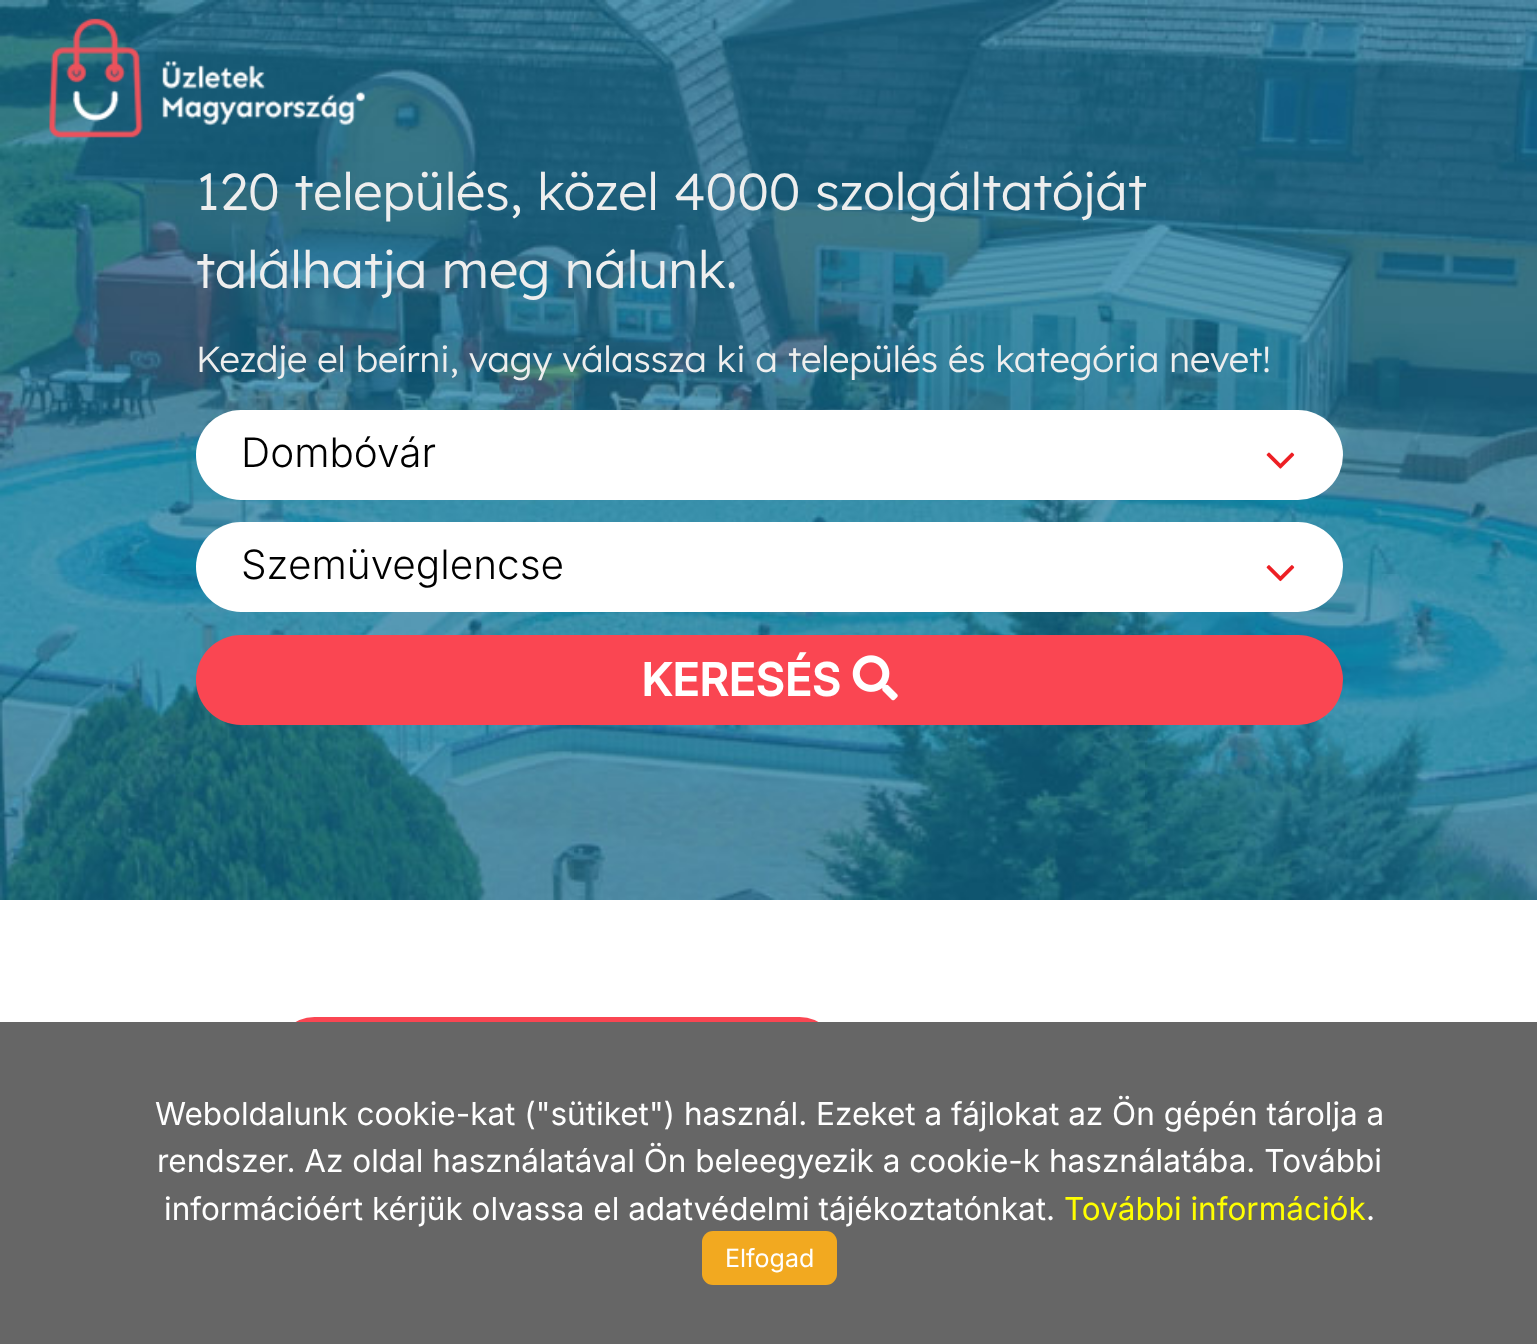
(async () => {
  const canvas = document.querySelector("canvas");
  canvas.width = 1537;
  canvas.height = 1344;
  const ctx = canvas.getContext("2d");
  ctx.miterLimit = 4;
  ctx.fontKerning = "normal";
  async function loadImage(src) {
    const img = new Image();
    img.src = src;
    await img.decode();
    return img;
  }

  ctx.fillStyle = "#ffffff";
  ctx.fillRect(0, 0, 1537, 1344);
  ctx.drawImage(await loadImage("img/2.png"), 0, 0, 1537, 900);
  ctx.drawImage(await loadImage("img/1.png"), 49, 18, 316, 120);
  ctx.beginPath();
  ctx.roundRect(196, 410, 1147, 90, 45);
  ctx.fill();
  ctx.drawImage(await loadImage("img/3.png"), 1266, 452, 29, 17);
  ctx.beginPath();
  ctx.roundRect(196, 522, 1147, 90, 45);
  ctx.fill();
  ctx.drawImage(await loadImage("img/4.png"), 1266, 565, 29, 17);
  ctx.fillStyle = "#fa4652";
  ctx.beginPath();
  ctx.roundRect(196, 635, 1147, 90, 45);
  ctx.fill();
  ctx.drawImage(await loadImage("img/5.png"), 852, 655, 46, 46);
  ctx.beginPath();
  ctx.roundRect(275, 1017, 564, 79, 39.5);
  ctx.fill();
  ctx.fillStyle = "#666666";
  ctx.fillRect(0, 1022, 1537, 322);
  ctx.fillStyle = "#f2a920";
  ctx.beginPath();
  ctx.roundRect(702, 1231, 135, 54, 11);
  ctx.fill();
  ctx.font = "300 51.75px Lexend";
  ctx.fillStyle = "#eeeeee";
  ctx.fillText("120 település, közel 4000 szolgáltatóját", 196, 210);
  ctx.fillText("találhatja meg nálunk.", 196, 288);
  ctx.font = "300 36px Lexend";
  ctx.fillText("Kezdje el beírni, vagy válassza ki a település és kategória nevet!", 196, 372);
  ctx.font = "300 40.5px Inter";
  ctx.fillStyle = "#000000";
  ctx.fillText("Dombóvár", 241, 467);
  ctx.fillText("Szemüveglencse", 241, 579);
  ctx.font = "bold 45px Inter";
  ctx.fillStyle = "#ffffff";
  ctx.fillText("KERESÉS", 641, 696);
  ctx.font = "31.5px Inter";
  for (const [text, x, y] of [
    ["Weboldalunk cookie-kat (\"sütiket\") használ. Ezeket a fájlokat az Ön gépén tárolja a", 155, 1125],
    ["rendszer. Az oldal használatával Ön beleegyezik a cookie-k használatába. További", 157, 1172],
    ["információért kérjük olvassa el adatvédelmi tájékoztatónkat.", 164, 1220],
  ]) {
    ctx.fillText(text, x, y);
  }
  ctx.fillStyle = "#ffff00";
  ctx.fillText("További információk", 1064, 1220);
  ctx.fillStyle = "#ffffff";
  ctx.fillText(".", 1366, 1220);
  ctx.font = "25px Inter";
  ctx.fillText("Elfogad", 725, 1267);
})();
